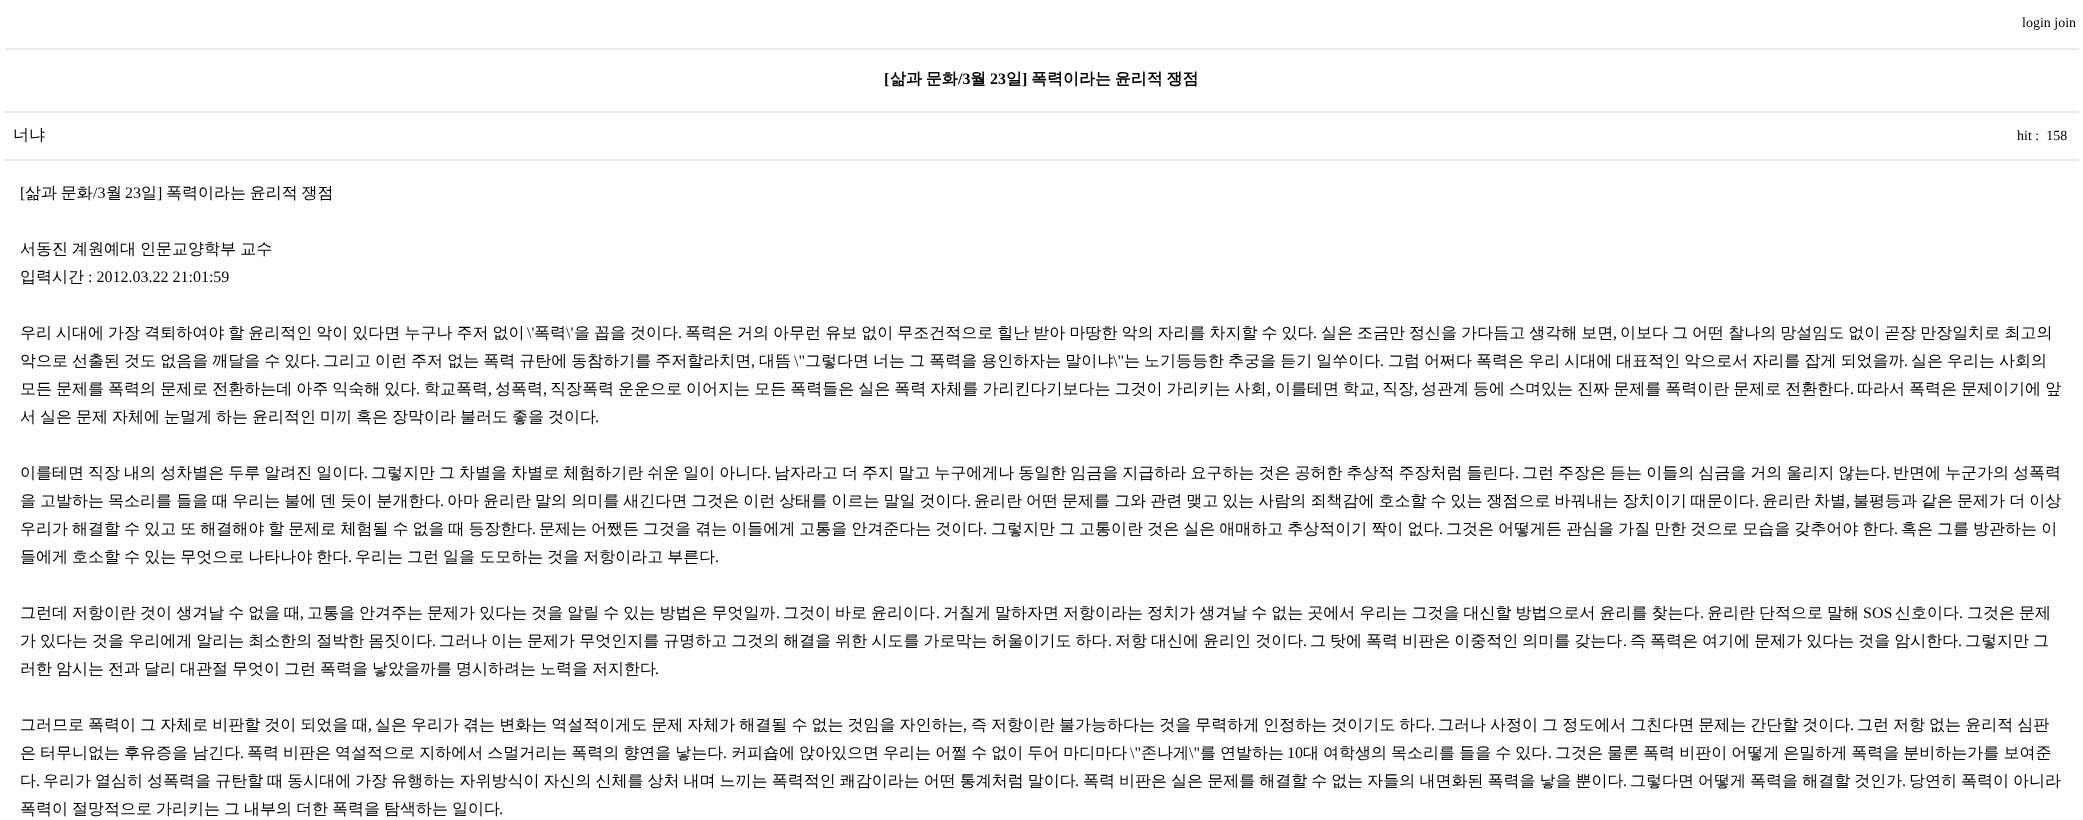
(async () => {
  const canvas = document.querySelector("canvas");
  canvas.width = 2083;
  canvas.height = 820;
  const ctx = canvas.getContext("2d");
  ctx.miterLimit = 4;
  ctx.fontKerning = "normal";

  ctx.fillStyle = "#ffffff";
  ctx.fillRect(0, 0, 2083, 820);
  for (const [x, y, w, h, color] of [
    [5, 48, 2074, 2, "#e9e9e9"],
    [5, 111, 2074, 2, "#e9e9e9"],
    [5, 159, 2074, 2, "#e9e9e9"],
  ]) {
    ctx.fillStyle = color;
    ctx.fillRect(x, y, w, h);
  }
  ctx.font = "14px Liberation Serif";
  ctx.fillStyle = "#000000";
  ctx.fillText("login join", 2022, 27);
  ctx.font = "bold 16px Liberation Serif";
  ctx.fillText("[", 884, 84);
  ctx.wordSpacing = "-1px";
  ctx.font = "bold 16px WenQuanYi Zen Hei";
  ctx.fillText("삶과 문화", 890, 84);
  ctx.wordSpacing = "0px";
  ctx.font = "bold 16px Liberation Serif";
  ctx.fillText("/3", 958, 84);
  ctx.font = "bold 16px WenQuanYi Zen Hei";
  ctx.fillText("월", 970, 84);
  ctx.font = "bold 16px Liberation Serif";
  ctx.fillText("23", 990, 84);
  ctx.font = "bold 16px WenQuanYi Zen Hei";
  ctx.fillText("일", 1006, 84);
  ctx.font = "bold 16px Liberation Serif";
  ctx.fillText("]", 1022, 84);
  ctx.wordSpacing = "-1px";
  ctx.font = "bold 16px WenQuanYi Zen Hei";
  ctx.fillText("폭력이라는 윤리적 쟁점", 1031, 84);
  ctx.wordSpacing = "0px";
  ctx.font = "500 16px WenQuanYi Zen Hei";
  ctx.fillText("너냐", 13, 140);
  ctx.font = "14px Liberation Serif";
  ctx.fillText("hit :  158", 2017, 140);
  ctx.font = "16px Liberation Serif";
  ctx.fillText("[", 20, 198);
  ctx.wordSpacing = "-1px";
  ctx.font = "500 16px WenQuanYi Zen Hei";
  ctx.fillText("삶과 문화", 25, 198);
  ctx.wordSpacing = "0px";
  ctx.font = "16px Liberation Serif";
  ctx.fillText("/3", 93, 198);
  ctx.font = "500 16px WenQuanYi Zen Hei";
  ctx.fillText("월", 106, 198);
  ctx.font = "16px Liberation Serif";
  ctx.fillText("23", 125, 198);
  ctx.font = "500 16px WenQuanYi Zen Hei";
  ctx.fillText("일", 141, 198);
  ctx.font = "16px Liberation Serif";
  ctx.fillText("]", 157, 198);
  ctx.wordSpacing = "-1px";
  ctx.font = "500 16px WenQuanYi Zen Hei";
  ctx.fillText("폭력이라는 윤리적 쟁점", 166, 198);
  ctx.wordSpacing = "-0.75px";
  ctx.fillText("서동진 계원예대 인문교양학부 교수", 20, 254);
  ctx.wordSpacing = "0px";
  ctx.fillText("입력시간", 20, 282);
  ctx.font = "16px Liberation Serif";
  ctx.fillText(": 2012.03.22 21:01:59", 88, 282);
  ctx.wordSpacing = "-0.75px";
  ctx.font = "500 16px WenQuanYi Zen Hei";
  ctx.fillText("우리 시대에 가장 격퇴하여야 할 윤리적인 악이 있다면 누구나 주저 없이", 20, 338);
  ctx.wordSpacing = "0px";
  ctx.font = "16px Liberation Serif";
  ctx.fillText("\\'", 527, 338);
  ctx.font = "500 16px WenQuanYi Zen Hei";
  ctx.fillText("폭력", 534, 338);
  ctx.font = "16px Liberation Serif";
  ctx.fillText("\\'", 566, 338);
  ctx.wordSpacing = "-0.75px";
  ctx.font = "500 16px WenQuanYi Zen Hei";
  ctx.fillText("을 꼽을 것이다", 574, 338);
  ctx.wordSpacing = "0px";
  ctx.font = "16px Liberation Serif";
  ctx.fillText(".", 678, 338);
  ctx.wordSpacing = "-0.75px";
  ctx.font = "500 16px WenQuanYi Zen Hei";
  ctx.fillText("폭력은 거의 아무런 유보 없이 무조건적으로 힐난 받아 마땅한 악의 자리를 차지할 수 있다", 685, 338);
  ctx.wordSpacing = "0px";
  ctx.font = "16px Liberation Serif";
  ctx.fillText(".", 1313, 338);
  ctx.wordSpacing = "-0.75px";
  ctx.font = "500 16px WenQuanYi Zen Hei";
  ctx.fillText("실은 조금만 정신을 가다듬고 생각해 보면", 1321, 338);
  ctx.wordSpacing = "0px";
  ctx.font = "16px Liberation Serif";
  ctx.fillText(",", 1613, 338);
  ctx.wordSpacing = "-0.75px";
  ctx.font = "500 16px WenQuanYi Zen Hei";
  ctx.fillText("이보다 그 어떤 찰나의 망설임도 없이 곧장 만장일치로 최고의", 1620, 338);
  ctx.fillText("악으로 선출된 것도 없음을 깨달을 수 있다", 20, 366);
  ctx.wordSpacing = "0px";
  ctx.font = "16px Liberation Serif";
  ctx.fillText(".", 316, 366);
  ctx.wordSpacing = "-0.75px";
  ctx.font = "500 16px WenQuanYi Zen Hei";
  ctx.fillText("그리고 이런 주저 없는 폭력 규탄에 동참하기를 주저할라치면", 323, 366);
  ctx.wordSpacing = "0px";
  ctx.font = "16px Liberation Serif";
  ctx.fillText(",", 751, 366);
  ctx.font = "500 16px WenQuanYi Zen Hei";
  ctx.fillText("대뜸", 759, 366);
  ctx.font = "16px Liberation Serif";
  ctx.fillText("\\\"", 794, 366);
  ctx.wordSpacing = "-0.75px";
  ctx.font = "500 16px WenQuanYi Zen Hei";
  ctx.fillText("그렇다면 너는 그 폭력을 용인하자는 말이냐", 805, 366);
  ctx.wordSpacing = "0px";
  ctx.font = "16px Liberation Serif";
  ctx.fillText("\\\"", 1113, 366);
  ctx.wordSpacing = "-0.75px";
  ctx.font = "500 16px WenQuanYi Zen Hei";
  ctx.fillText("는 노기등등한 추궁을 듣기 일쑤이다", 1124, 366);
  ctx.wordSpacing = "0px";
  ctx.font = "16px Liberation Serif";
  ctx.fillText(".", 1380, 366);
  ctx.wordSpacing = "-0.75px";
  ctx.font = "500 16px WenQuanYi Zen Hei";
  ctx.fillText("그럼 어쩌다 폭력은 우리 시대에 대표적인 악으로서 자리를 잡게 되었을까", 1388, 366);
  ctx.wordSpacing = "0px";
  ctx.font = "16px Liberation Serif";
  ctx.fillText(".", 1904, 366);
  ctx.wordSpacing = "-0.75px";
  ctx.font = "500 16px WenQuanYi Zen Hei";
  ctx.fillText("실은 우리는 사회의", 1911, 366);
  ctx.fillText("모든 문제를 폭력의 문제로 전환하는데 아주 익숙해 있다", 20, 394);
  ctx.wordSpacing = "0px";
  ctx.font = "16px Liberation Serif";
  ctx.fillText(".", 416, 394);
  ctx.font = "500 16px WenQuanYi Zen Hei";
  ctx.fillText("학교폭력", 424, 394);
  ctx.font = "16px Liberation Serif";
  ctx.fillText(",", 488, 394);
  ctx.font = "500 16px WenQuanYi Zen Hei";
  ctx.fillText("성폭력", 495, 394);
  ctx.font = "16px Liberation Serif";
  ctx.fillText(",", 543, 394);
  ctx.wordSpacing = "-0.75px";
  ctx.font = "500 16px WenQuanYi Zen Hei";
  ctx.fillText("직장폭력 운운으로 이어지는 모든 폭력들은 실은 폭력 자체를 가리킨다기보다는 그것이 가리키는 사회", 550, 394);
  ctx.wordSpacing = "0px";
  ctx.font = "16px Liberation Serif";
  ctx.fillText(",", 1267, 394);
  ctx.wordSpacing = "-0.75px";
  ctx.font = "500 16px WenQuanYi Zen Hei";
  ctx.fillText("이를테면 학교", 1275, 394);
  ctx.wordSpacing = "0px";
  ctx.font = "16px Liberation Serif";
  ctx.fillText(",", 1375, 394);
  ctx.font = "500 16px WenQuanYi Zen Hei";
  ctx.fillText("직장", 1382, 394);
  ctx.font = "16px Liberation Serif";
  ctx.fillText(",", 1414, 394);
  ctx.wordSpacing = "-0.75px";
  ctx.font = "500 16px WenQuanYi Zen Hei";
  ctx.fillText("성관계 등에 스며있는 진짜 문제를 폭력이란 문제로 전환한다", 1421, 394);
  ctx.wordSpacing = "0px";
  ctx.font = "16px Liberation Serif";
  ctx.fillText(".", 1850, 394);
  ctx.wordSpacing = "-0.75px";
  ctx.font = "500 16px WenQuanYi Zen Hei";
  ctx.fillText("따라서 폭력은 문제이기에 앞", 1857, 394);
  ctx.wordSpacing = "-0.8px";
  ctx.fillText("서 실은 문제 자체에 눈멀게 하는 윤리적인 미끼 혹은 장막이라 불러도 좋을 것이다", 20, 422);
  ctx.wordSpacing = "0px";
  ctx.font = "16px Liberation Serif";
  ctx.fillText(".", 595, 422);
  ctx.wordSpacing = "-0.75px";
  ctx.font = "500 16px WenQuanYi Zen Hei";
  ctx.fillText("이를테면 직장 내의 성차별은 두루 알려진 일이다", 20, 478);
  ctx.wordSpacing = "0px";
  ctx.font = "16px Liberation Serif";
  ctx.fillText(".", 364, 478);
  ctx.wordSpacing = "-0.75px";
  ctx.font = "500 16px WenQuanYi Zen Hei";
  ctx.fillText("그렇지만 그 차별을 차별로 체험하기란 쉬운 일이 아니다", 371, 478);
  ctx.wordSpacing = "0px";
  ctx.font = "16px Liberation Serif";
  ctx.fillText(".", 767, 478);
  ctx.wordSpacing = "-0.75px";
  ctx.font = "500 16px WenQuanYi Zen Hei";
  ctx.fillText("남자라고 더 주지 말고 누구에게나 동일한 임금을 지급하라 요구하는 것은 공허한 추상적 주장처럼 들린다", 774, 478);
  ctx.wordSpacing = "0px";
  ctx.font = "16px Liberation Serif";
  ctx.fillText(".", 1515, 478);
  ctx.wordSpacing = "-0.75px";
  ctx.font = "500 16px WenQuanYi Zen Hei";
  ctx.fillText("그런 주장은 듣는 이들의 심금을 거의 울리지 않는다", 1522, 478);
  ctx.wordSpacing = "0px";
  ctx.font = "16px Liberation Serif";
  ctx.fillText(".", 1886, 478);
  ctx.wordSpacing = "-0.75px";
  ctx.font = "500 16px WenQuanYi Zen Hei";
  ctx.fillText("반면에 누군가의 성폭력", 1893, 478);
  ctx.fillText("을 고발하는 목소리를 들을 때 우리는 불에 덴 듯이 분개한다", 20, 506);
  ctx.wordSpacing = "0px";
  ctx.font = "16px Liberation Serif";
  ctx.fillText(".", 440, 506);
  ctx.wordSpacing = "-0.75px";
  ctx.font = "500 16px WenQuanYi Zen Hei";
  ctx.fillText("아마 윤리란 말의 의미를 새긴다면 그것은 이런 상태를 이르는 말일 것이다", 447, 506);
  ctx.wordSpacing = "0px";
  ctx.font = "16px Liberation Serif";
  ctx.fillText(".", 967, 506);
  ctx.wordSpacing = "-0.75px";
  ctx.font = "500 16px WenQuanYi Zen Hei";
  ctx.fillText("윤리란 어떤 문제를 그와 관련 맺고 있는 사람의 죄책감에 호소할 수 있는 쟁점으로 바꿔내는 장치이기 때문이다", 974, 506);
  ctx.wordSpacing = "0px";
  ctx.font = "16px Liberation Serif";
  ctx.fillText(".", 1755, 506);
  ctx.wordSpacing = "-0.75px";
  ctx.font = "500 16px WenQuanYi Zen Hei";
  ctx.fillText("윤리란 차별", 1762, 506);
  ctx.wordSpacing = "0px";
  ctx.font = "16px Liberation Serif";
  ctx.fillText(",", 1846, 506);
  ctx.wordSpacing = "-0.75px";
  ctx.font = "500 16px WenQuanYi Zen Hei";
  ctx.fillText("불평등과 같은 문제가 더 이상", 1853, 506);
  ctx.fillText("우리가 해결할 수 있고 또 해결해야 할 문제로 체험될 수 없을 때 등장한다", 20, 534);
  ctx.wordSpacing = "0px";
  ctx.font = "16px Liberation Serif";
  ctx.fillText(".", 532, 534);
  ctx.wordSpacing = "-0.75px";
  ctx.font = "500 16px WenQuanYi Zen Hei";
  ctx.fillText("문제는 어쨌든 그것을 겪는 이들에게 고통을 안겨준다는 것이다", 539, 534);
  ctx.wordSpacing = "0px";
  ctx.font = "16px Liberation Serif";
  ctx.fillText(".", 983, 534);
  ctx.wordSpacing = "-0.75px";
  ctx.font = "500 16px WenQuanYi Zen Hei";
  ctx.fillText("그렇지만 그 고통이란 것은 실은 애매하고 추상적이기 짝이 없다", 991, 534);
  ctx.wordSpacing = "0px";
  ctx.font = "16px Liberation Serif";
  ctx.fillText(".", 1439, 534);
  ctx.wordSpacing = "-0.75px";
  ctx.font = "500 16px WenQuanYi Zen Hei";
  ctx.fillText("그것은 어떻게든 관심을 가질 만한 것으로 모습을 갖추어야 한다", 1446, 534);
  ctx.wordSpacing = "0px";
  ctx.font = "16px Liberation Serif";
  ctx.fillText(".", 1894, 534);
  ctx.wordSpacing = "-0.75px";
  ctx.font = "500 16px WenQuanYi Zen Hei";
  ctx.fillText("혹은 그를 방관하는 이", 1901, 534);
  ctx.fillText("들에게 호소할 수 있는 무엇으로 나타나야 한다", 20, 562);
  ctx.wordSpacing = "0px";
  ctx.font = "16px Liberation Serif";
  ctx.fillText(".", 348, 562);
  ctx.wordSpacing = "-0.75px";
  ctx.font = "500 16px WenQuanYi Zen Hei";
  ctx.fillText("우리는 그런 일을 도모하는 것을 저항이라고 부른다", 355, 562);
  ctx.wordSpacing = "0px";
  ctx.font = "16px Liberation Serif";
  ctx.fillText(".", 715, 562);
  ctx.wordSpacing = "-0.75px";
  ctx.font = "500 16px WenQuanYi Zen Hei";
  ctx.fillText("그런데 저항이란 것이 생겨날 수 없을 때", 20, 618);
  ctx.wordSpacing = "0px";
  ctx.font = "16px Liberation Serif";
  ctx.fillText(",", 300, 618);
  ctx.wordSpacing = "-0.75px";
  ctx.font = "500 16px WenQuanYi Zen Hei";
  ctx.fillText("고통을 안겨주는 문제가 있다는 것을 알릴 수 있는 방법은 무엇일까", 307, 618);
  ctx.wordSpacing = "0px";
  ctx.font = "16px Liberation Serif";
  ctx.fillText(".", 776, 618);
  ctx.wordSpacing = "-0.75px";
  ctx.font = "500 16px WenQuanYi Zen Hei";
  ctx.fillText("그것이 바로 윤리이다", 783, 618);
  ctx.wordSpacing = "0px";
  ctx.font = "16px Liberation Serif";
  ctx.fillText(".", 936, 618);
  ctx.wordSpacing = "-0.75px";
  ctx.font = "500 16px WenQuanYi Zen Hei";
  ctx.fillText("거칠게 말하자면 저항이라는 정치가 생겨날 수 없는 곳에서 우리는 그것을 대신할 방법으로서 윤리를 찾는다", 943, 618);
  ctx.wordSpacing = "0px";
  ctx.font = "16px Liberation Serif";
  ctx.fillText(".", 1700, 618);
  ctx.wordSpacing = "-0.75px";
  ctx.font = "500 16px WenQuanYi Zen Hei";
  ctx.fillText("윤리란 단적으로 말해", 1707, 618);
  ctx.wordSpacing = "0px";
  ctx.font = "16px Liberation Serif";
  ctx.fillText("SOS", 1863, 618);
  ctx.font = "500 16px WenQuanYi Zen Hei";
  ctx.fillText("신호이다", 1895, 618);
  ctx.font = "16px Liberation Serif";
  ctx.fillText(".", 1959, 618);
  ctx.wordSpacing = "-0.75px";
  ctx.font = "500 16px WenQuanYi Zen Hei";
  ctx.fillText("그것은 문제", 1967, 618);
  ctx.fillText("가 있다는 것을 우리에게 알리는 최소한의 절박한 몸짓이다", 20, 646);
  ctx.wordSpacing = "0px";
  ctx.font = "16px Liberation Serif";
  ctx.fillText(".", 432, 646);
  ctx.wordSpacing = "-0.75px";
  ctx.font = "500 16px WenQuanYi Zen Hei";
  ctx.fillText("그러나 이는 문제가 무엇인지를 규명하고 그것의 해결을 위한 시도를 가로막는 허울이기도 하다", 439, 646);
  ctx.wordSpacing = "0px";
  ctx.font = "16px Liberation Serif";
  ctx.fillText(".", 1108, 646);
  ctx.wordSpacing = "-0.75px";
  ctx.font = "500 16px WenQuanYi Zen Hei";
  ctx.fillText("저항 대신에 윤리인 것이다", 1115, 646);
  ctx.wordSpacing = "0px";
  ctx.font = "16px Liberation Serif";
  ctx.fillText(".", 1303, 646);
  ctx.wordSpacing = "-0.75px";
  ctx.font = "500 16px WenQuanYi Zen Hei";
  ctx.fillText("그 탓에 폭력 비판은 이중적인 의미를 갖는다", 1310, 646);
  ctx.wordSpacing = "0px";
  ctx.font = "16px Liberation Serif";
  ctx.fillText(".", 1623, 646);
  ctx.wordSpacing = "-0.75px";
  ctx.font = "500 16px WenQuanYi Zen Hei";
  ctx.fillText("즉 폭력은 여기에 문제가 있다는 것을 암시한다", 1630, 646);
  ctx.wordSpacing = "0px";
  ctx.font = "16px Liberation Serif";
  ctx.fillText(".", 1958, 646);
  ctx.wordSpacing = "-0.75px";
  ctx.font = "500 16px WenQuanYi Zen Hei";
  ctx.fillText("그렇지만 그", 1965, 646);
  ctx.wordSpacing = "-0.8px";
  ctx.fillText("러한 암시는 전과 달리 대관절 무엇이 그런 폭력을 낳았을까를 명시하려는 노력을 저지한다", 20, 674);
  ctx.wordSpacing = "0px";
  ctx.font = "16px Liberation Serif";
  ctx.fillText(".", 655, 674);
  ctx.wordSpacing = "-0.75px";
  ctx.font = "500 16px WenQuanYi Zen Hei";
  ctx.fillText("그러므로 폭력이 그 자체로 비판할 것이 되었을 때", 20, 730);
  ctx.wordSpacing = "0px";
  ctx.font = "16px Liberation Serif";
  ctx.fillText(",", 368, 730);
  ctx.wordSpacing = "-0.75px";
  ctx.font = "500 16px WenQuanYi Zen Hei";
  ctx.fillText("실은 우리가 겪는 변화는 역설적이게도 문제 자체가 해결될 수 없는 것임을 자인하는", 375, 730);
  ctx.wordSpacing = "0px";
  ctx.font = "16px Liberation Serif";
  ctx.fillText(",", 963, 730);
  ctx.wordSpacing = "-0.75px";
  ctx.font = "500 16px WenQuanYi Zen Hei";
  ctx.fillText("즉 저항이란 불가능하다는 것을 무력하게 인정하는 것이기도 하다", 971, 730);
  ctx.wordSpacing = "0px";
  ctx.font = "16px Liberation Serif";
  ctx.fillText(".", 1431, 730);
  ctx.wordSpacing = "-0.75px";
  ctx.font = "500 16px WenQuanYi Zen Hei";
  ctx.fillText("그러나 사정이 그 정도에서 그친다면 문제는 간단할 것이다", 1438, 730);
  ctx.wordSpacing = "0px";
  ctx.font = "16px Liberation Serif";
  ctx.fillText(".", 1850, 730);
  ctx.wordSpacing = "-0.75px";
  ctx.font = "500 16px WenQuanYi Zen Hei";
  ctx.fillText("그런 저항 없는 윤리적 심판", 1857, 730);
  ctx.fillText("은 터무니없는 후유증을 남긴다", 20, 758);
  ctx.wordSpacing = "0px";
  ctx.font = "16px Liberation Serif";
  ctx.fillText(".", 240, 758);
  ctx.wordSpacing = "-0.75px";
  ctx.font = "500 16px WenQuanYi Zen Hei";
  ctx.fillText("폭력 비판은 역설적으로 지하에서 스멀거리는 폭력의 향연을 낳는다", 247, 758);
  ctx.wordSpacing = "0px";
  ctx.font = "16px Liberation Serif";
  ctx.fillText(".", 723, 758);
  ctx.wordSpacing = "-0.75px";
  ctx.font = "500 16px WenQuanYi Zen Hei";
  ctx.fillText("커피숍에 앉아있으면 우리는 어쩔 수 없이 두어 마디마다", 731, 758);
  ctx.wordSpacing = "0px";
  ctx.font = "16px Liberation Serif";
  ctx.fillText("\\\"", 1130, 758);
  ctx.font = "500 16px WenQuanYi Zen Hei";
  ctx.fillText("존나게", 1141, 758);
  ctx.font = "16px Liberation Serif";
  ctx.fillText("\\\"", 1189, 758);
  ctx.wordSpacing = "-0.75px";
  ctx.font = "500 16px WenQuanYi Zen Hei";
  ctx.fillText("를 연발하는", 1200, 758);
  ctx.wordSpacing = "0px";
  ctx.font = "16px Liberation Serif";
  ctx.fillText("10", 1287, 758);
  ctx.wordSpacing = "-0.75px";
  ctx.font = "500 16px WenQuanYi Zen Hei";
  ctx.fillText("대 여학생의 목소리를 들을 수 있다", 1303, 758);
  ctx.wordSpacing = "0px";
  ctx.font = "16px Liberation Serif";
  ctx.fillText(".", 1548, 758);
  ctx.wordSpacing = "-0.75px";
  ctx.font = "500 16px WenQuanYi Zen Hei";
  ctx.fillText("그것은 물론 폭력 비판이 어떻게 은밀하게 폭력을 분비하는가를 보여준", 1555, 758);
  ctx.wordSpacing = "0px";
  ctx.fillText("다", 20, 786);
  ctx.font = "16px Liberation Serif";
  ctx.fillText(".", 36, 786);
  ctx.wordSpacing = "-0.75px";
  ctx.font = "500 16px WenQuanYi Zen Hei";
  ctx.fillText("우리가 열심히 성폭력을 규탄할 때 동시대에 가장 유행하는 자위방식이 자신의 신체를 상처 내며 느끼는 폭력적인 쾌감이라는 어떤 통계처럼 말이다", 43, 786);
  ctx.wordSpacing = "0px";
  ctx.font = "16px Liberation Serif";
  ctx.fillText(".", 1075, 786);
  ctx.wordSpacing = "-0.75px";
  ctx.font = "500 16px WenQuanYi Zen Hei";
  ctx.fillText("폭력 비판은 실은 문제를 해결할 수 없는 자들의 내면화된 폭력을 낳을 뿐이다", 1083, 786);
  ctx.wordSpacing = "0px";
  ctx.font = "16px Liberation Serif";
  ctx.fillText(".", 1623, 786);
  ctx.wordSpacing = "-0.75px";
  ctx.font = "500 16px WenQuanYi Zen Hei";
  ctx.fillText("그렇다면 어떻게 폭력을 해결할 것인가", 1630, 786);
  ctx.wordSpacing = "0px";
  ctx.font = "16px Liberation Serif";
  ctx.fillText(".", 1902, 786);
  ctx.wordSpacing = "-0.75px";
  ctx.font = "500 16px WenQuanYi Zen Hei";
  ctx.fillText("당연히 폭력이 아니라", 1909, 786);
  ctx.wordSpacing = "-0.8px";
  ctx.fillText("폭력이 절망적으로 가리키는 그 내부의 더한 폭력을 탐색하는 일이다", 20, 814);
  ctx.wordSpacing = "0px";
  ctx.font = "16px Liberation Serif";
  ctx.fillText(".", 499, 814);
})();
